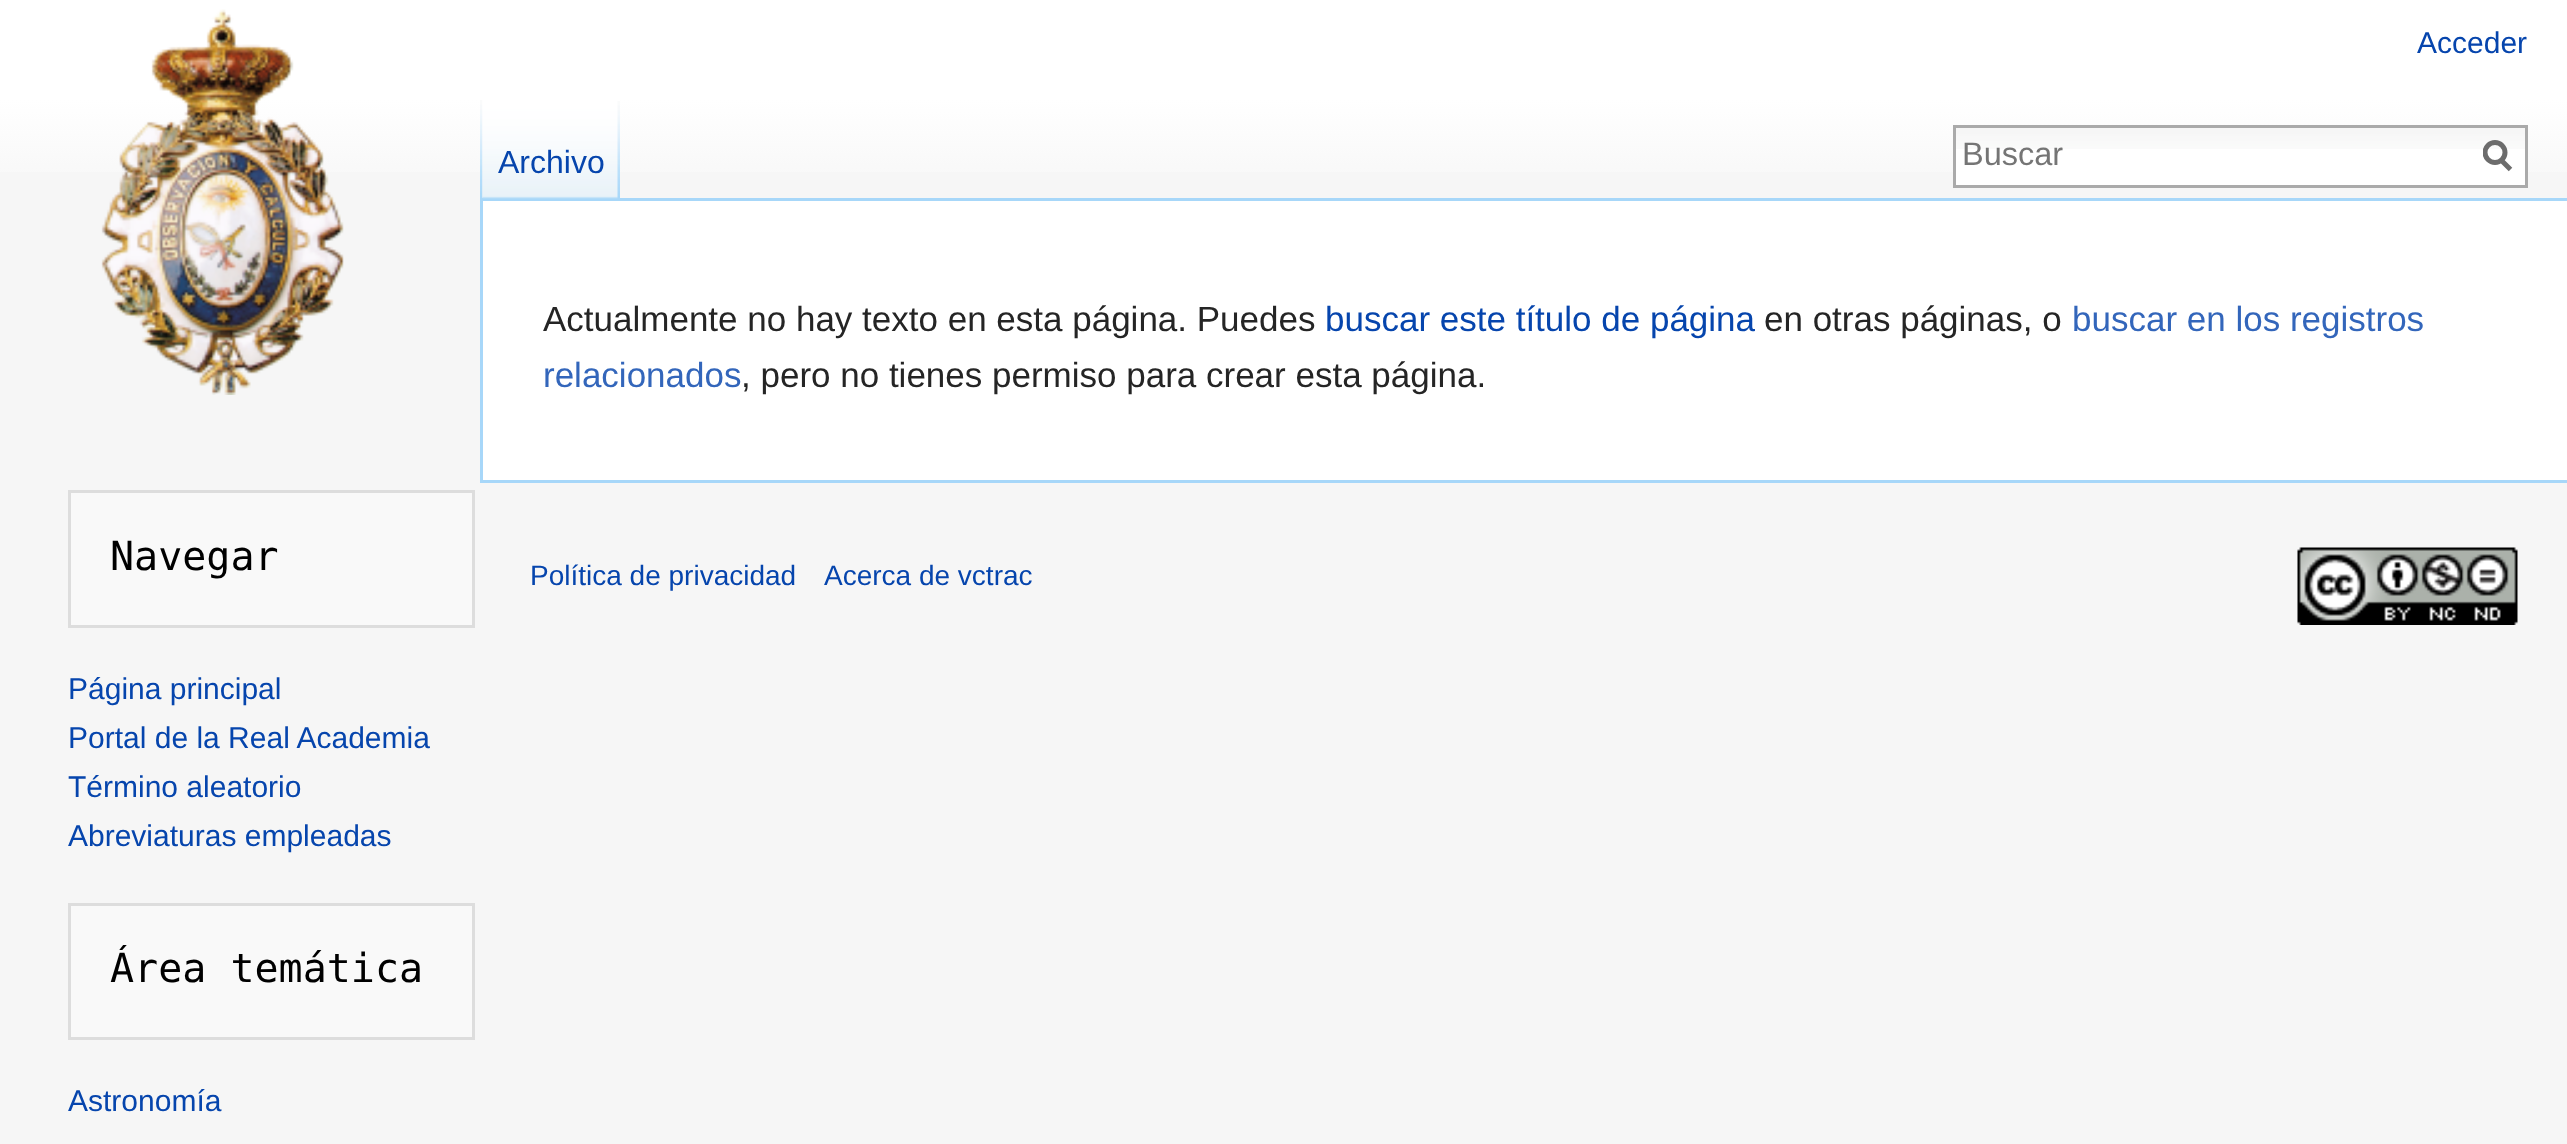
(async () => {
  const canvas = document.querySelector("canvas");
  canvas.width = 2567;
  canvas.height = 1144;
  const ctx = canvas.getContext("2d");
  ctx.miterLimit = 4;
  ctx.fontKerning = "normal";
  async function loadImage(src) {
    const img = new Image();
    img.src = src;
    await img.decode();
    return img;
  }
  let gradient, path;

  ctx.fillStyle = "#f6f6f6";
  ctx.fillRect(0, 0, 2567, 1144);
  gradient = ctx.createLinearGradient(1284, 0, 1284, 200);
  gradient.addColorStop(0.5, "#ffffff");
  gradient.addColorStop(1, "#f6f6f6");
  ctx.fillStyle = gradient;
  ctx.fillRect(0, 0, 2567, 172);
  ctx.drawImage(await loadImage("img/1.png"), 480, 100, 3, 98);
  for (const [x, y, w, h, color] of [
    [480, 198, 2087, 3, "#a7d7f9"],
    [480, 480, 2087, 3, "#a7d7f9"],
    [480, 198, 3, 285, "#a7d7f9"],
  ]) {
    ctx.fillStyle = color;
    ctx.fillRect(x, y, w, h);
  }
  ctx.drawImage(await loadImage("img/2.png"), 482, 100, 138, 100);
  ctx.drawImage(await loadImage("img/3.png"), 617, 101, 3, 98);
  ctx.fillStyle = "#ffffff";
  ctx.fillRect(1956, 149, 569, 36);
  ctx.drawImage(await loadImage("img/4.png"), 1956, 128, 569, 21);
  ctx.strokeStyle = "#aaaaaa";
  ctx.lineWidth = 3;
  ctx.strokeRect(1954.5, 126.5, 572, 60);
  path = new Path2D("M2510.5 169.5L2500.5 159.5");
  ctx.strokeStyle = "#6c6c6c";
  ctx.lineWidth = 5;
  ctx.stroke(path);
  ctx.save();
  ctx.beginPath();
  ctx.rect(2483, 140, 30, 33);
  ctx.clip();
  ctx.beginPath();
  ctx.arc(2495, 152.5, 10, 0, Math.PI * 2);
  ctx.stroke();
  ctx.restore();
  ctx.drawImage(await loadImage("img/5.png"), 101, 9, 243, 386);
  ctx.fillStyle = "#f9f9f9";
  ctx.beginPath();
  ctx.rect(69.5, 491.5, 404, 135);
  ctx.fill();
  ctx.strokeStyle = "#dddddd";
  ctx.lineWidth = 3;
  ctx.stroke();
  ctx.beginPath();
  ctx.rect(69.5, 904.5, 404, 134);
  ctx.fill();
  ctx.stroke();
  ctx.fillStyle = "#ffffff";
  ctx.fillRect(483, 201, 2084, 279);
  ctx.drawImage(await loadImage("img/6.png"), 2297, 547, 221, 78);
  ctx.font = "30px Liberation Sans";
  ctx.fillStyle = "#0645ad";
  ctx.fillText("Acceder", 2417, 53);
  ctx.font = "32px Liberation Sans";
  ctx.fillText("Archivo", 498, 173);
  ctx.font = "32.5px Liberation Sans";
  ctx.fillStyle = "#757575";
  ctx.fillText("Buscar", 1962, 165);
  ctx.font = "40px DejaVu Sans Mono";
  ctx.fillStyle = "#000000";
  ctx.fillText("Navegar", 110, 570);
  ctx.font = "30px Liberation Sans";
  ctx.fillStyle = "#0645ad";
  for (const [text, x, y] of [
    ["Página principal", 68, 699],
    ["Portal de la Real Academia", 68, 748],
    ["Término aleatorio", 68, 797],
    ["Abreviaturas empleadas", 68, 846],
  ]) {
    ctx.fillText(text, x, y);
  }
  ctx.font = "40px DejaVu Sans Mono";
  ctx.fillStyle = "#000000";
  ctx.fillText("Área temática", 110, 982);
  ctx.font = "30px Liberation Sans";
  ctx.fillStyle = "#0645ad";
  ctx.fillText("Astronomía", 68, 1111);
  ctx.font = "35px Liberation Sans";
  ctx.fillStyle = "#252525";
  ctx.fillText("Actualmente no hay texto en esta página. Puedes", 543, 331);
  ctx.fillStyle = "#0645ad";
  ctx.fillText("buscar este título de página", 1325, 331);
  ctx.fillStyle = "#252525";
  ctx.fillText("en otras páginas, o", 1764, 331);
  ctx.fillStyle = "#3366bb";
  ctx.fillText("buscar en los registros", 2072, 331);
  ctx.fillText("relacionados", 543, 387);
  ctx.fillStyle = "#252525";
  ctx.fillText(", pero no tienes permiso para crear esta página.", 741, 387);
  ctx.font = "28px Liberation Sans";
  ctx.fillStyle = "#0645ad";
  ctx.fillText("Política de privacidad", 530, 585);
  ctx.fillText("Acerca de vctrac", 824, 585);
})();
